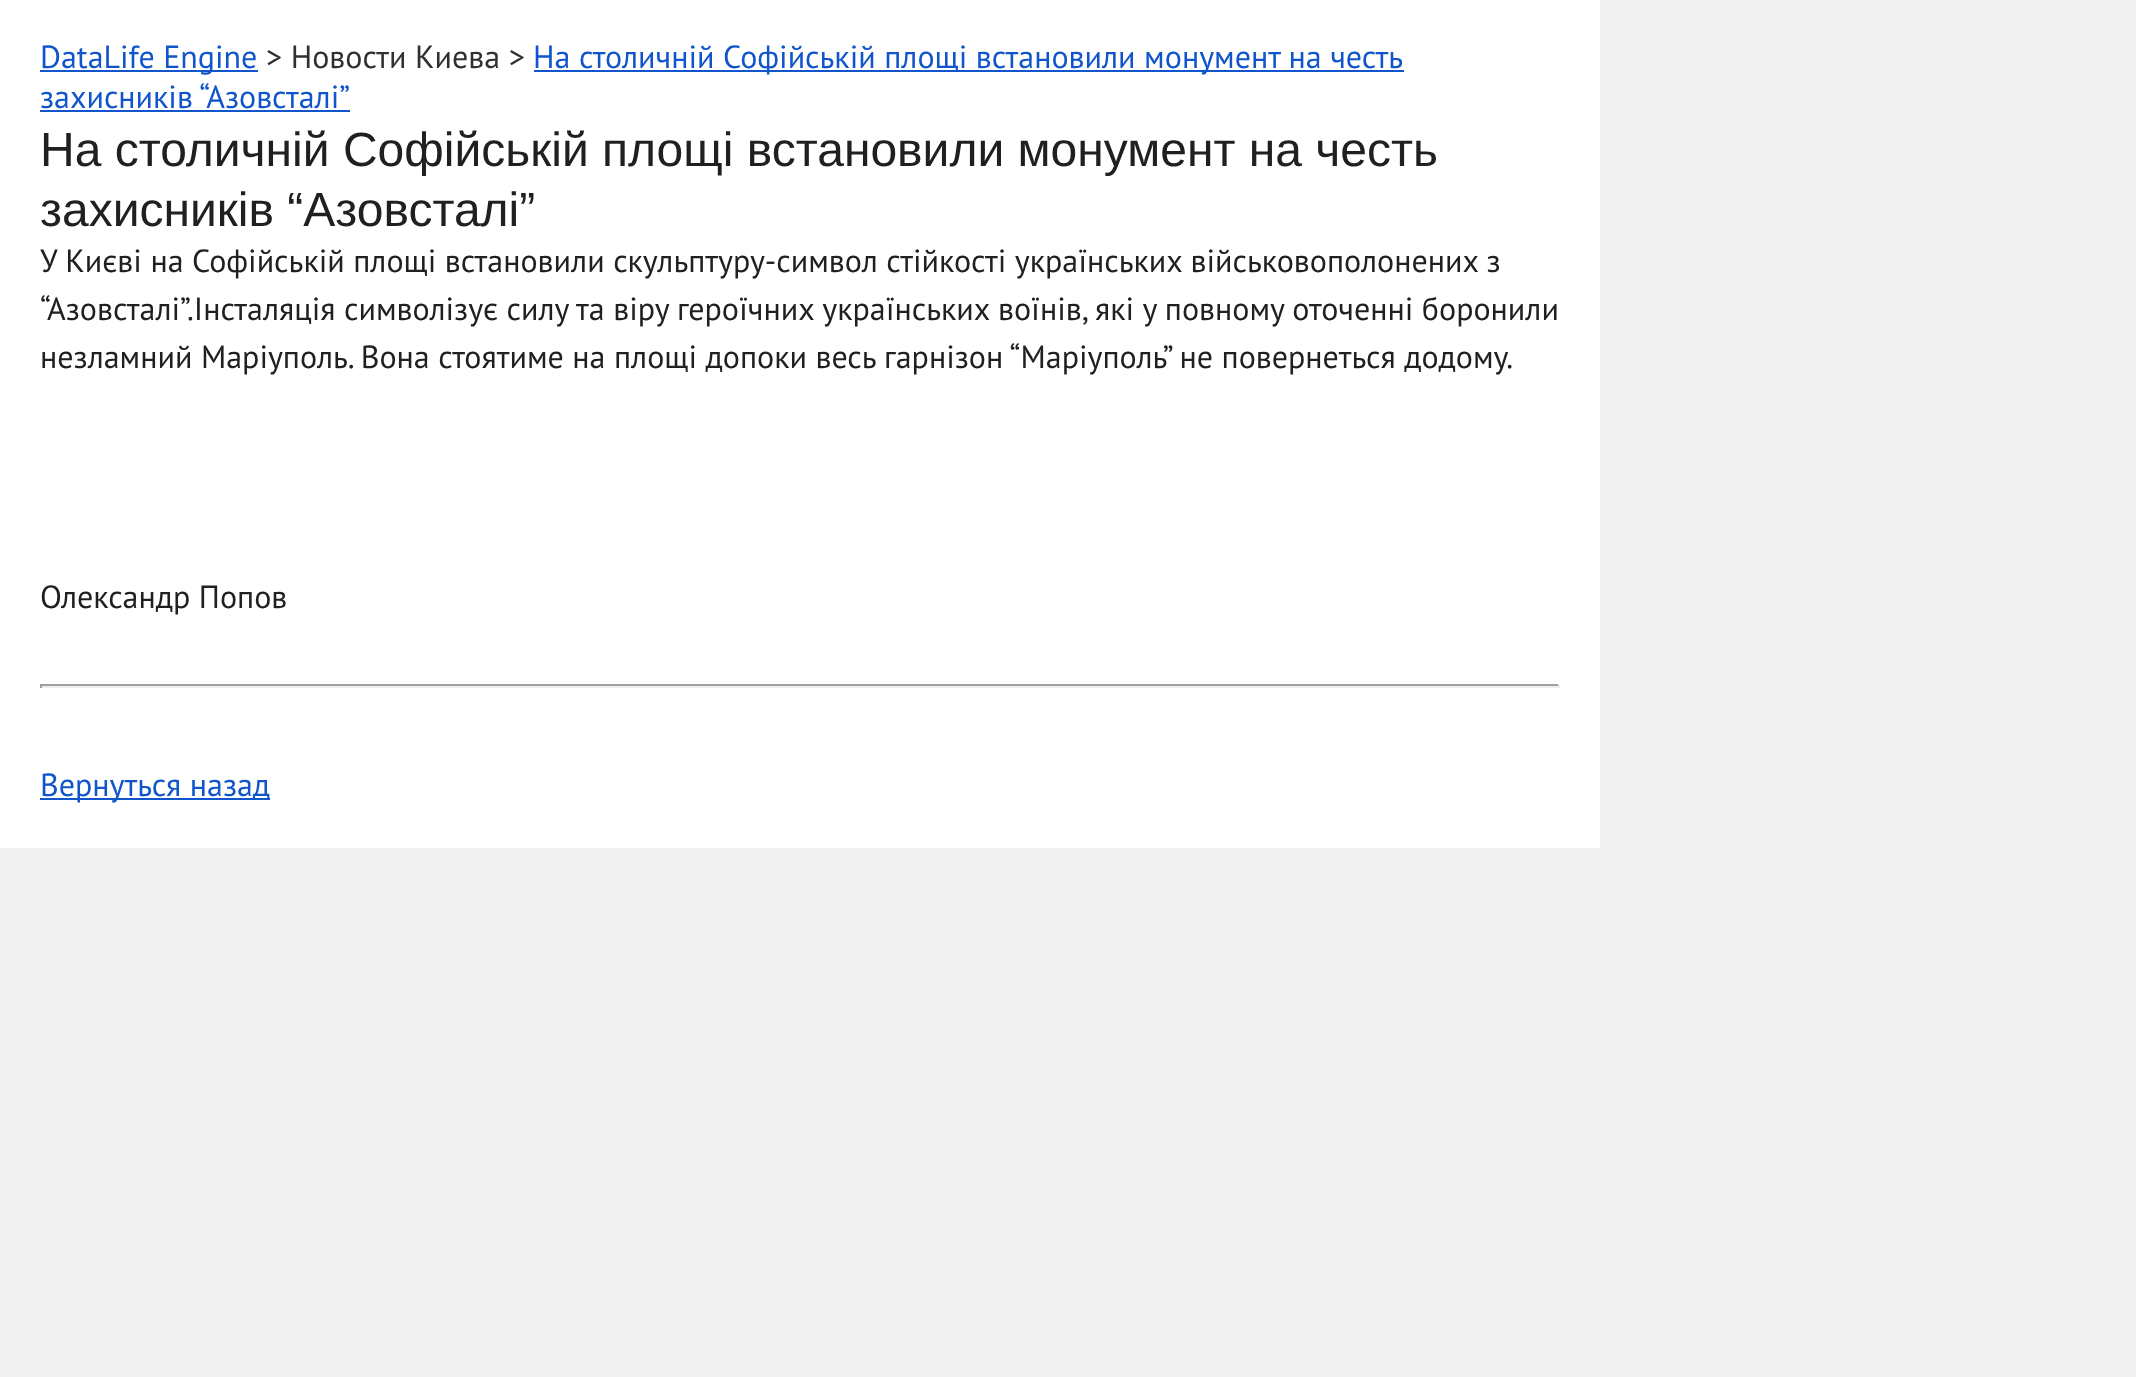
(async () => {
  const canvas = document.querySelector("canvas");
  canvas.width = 2136;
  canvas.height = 1377;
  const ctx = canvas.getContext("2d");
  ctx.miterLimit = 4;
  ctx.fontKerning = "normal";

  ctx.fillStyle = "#f1f1f1";
  ctx.fillRect(0, 0, 2136, 1377);
  for (const [x, y, w, h, color] of [
    [0, 0, 1600, 848, "#ffffff"],
    [40, 70, 218, 2, "#1155cc"],
    [534, 70, 870, 2, "#1155cc"],
    [40, 110, 310, 2, "#1155cc"],
    [40, 684, 1520, 2, "#9f9f9f"],
    [1558, 684, 2, 4, "#eeeeee"],
    [40, 686, 1520, 2, "#eeeeee"],
    [40, 684, 2, 4, "#9f9f9f"],
    [40, 798, 230, 2, "#1155cc"],
  ]) {
    ctx.fillStyle = color;
    ctx.fillRect(x, y, w, h);
  }
  ctx.font = "32px PT Sans";
  ctx.fillText("DataLife Engine", 40, 68);
  ctx.fillStyle = "#303030";
  ctx.fillText("> Новости Киева >", 266, 68);
  ctx.fillStyle = "#1155cc";
  ctx.fillText("На столичній Софійській площі встановили монумент на честь", 533, 68);
  ctx.fillText("захисників “Азовсталі”", 40, 108);
  ctx.font = "48px Liberation Sans";
  ctx.fillStyle = "#202020";
  ctx.fillText("На столичній Софійській площі встановили монумент на честь", 40, 166);
  ctx.fillText("захисників “Азовсталі”", 40, 226);
  ctx.font = "32px PT Sans";
  for (const [text, x, y] of [
    ["У Києві на Софійській площі встановили скульптуру-символ стійкості українських військовополонених з", 40, 272],
    ["“Азовсталі”.Інсталяція символізує силу та віру героїчних українських воїнів, які у повному оточенні боронили", 40, 320],
    ["незламний Маріуполь. Вона стоятиме на площі допоки весь гарнізон “Маріуполь” не повернеться додому.", 40, 368],
    ["Олександр Попов", 40, 608],
  ]) {
    ctx.fillText(text, x, y);
  }
  ctx.fillStyle = "#1155cc";
  ctx.fillText("Вернуться назад", 40, 796);
})();
